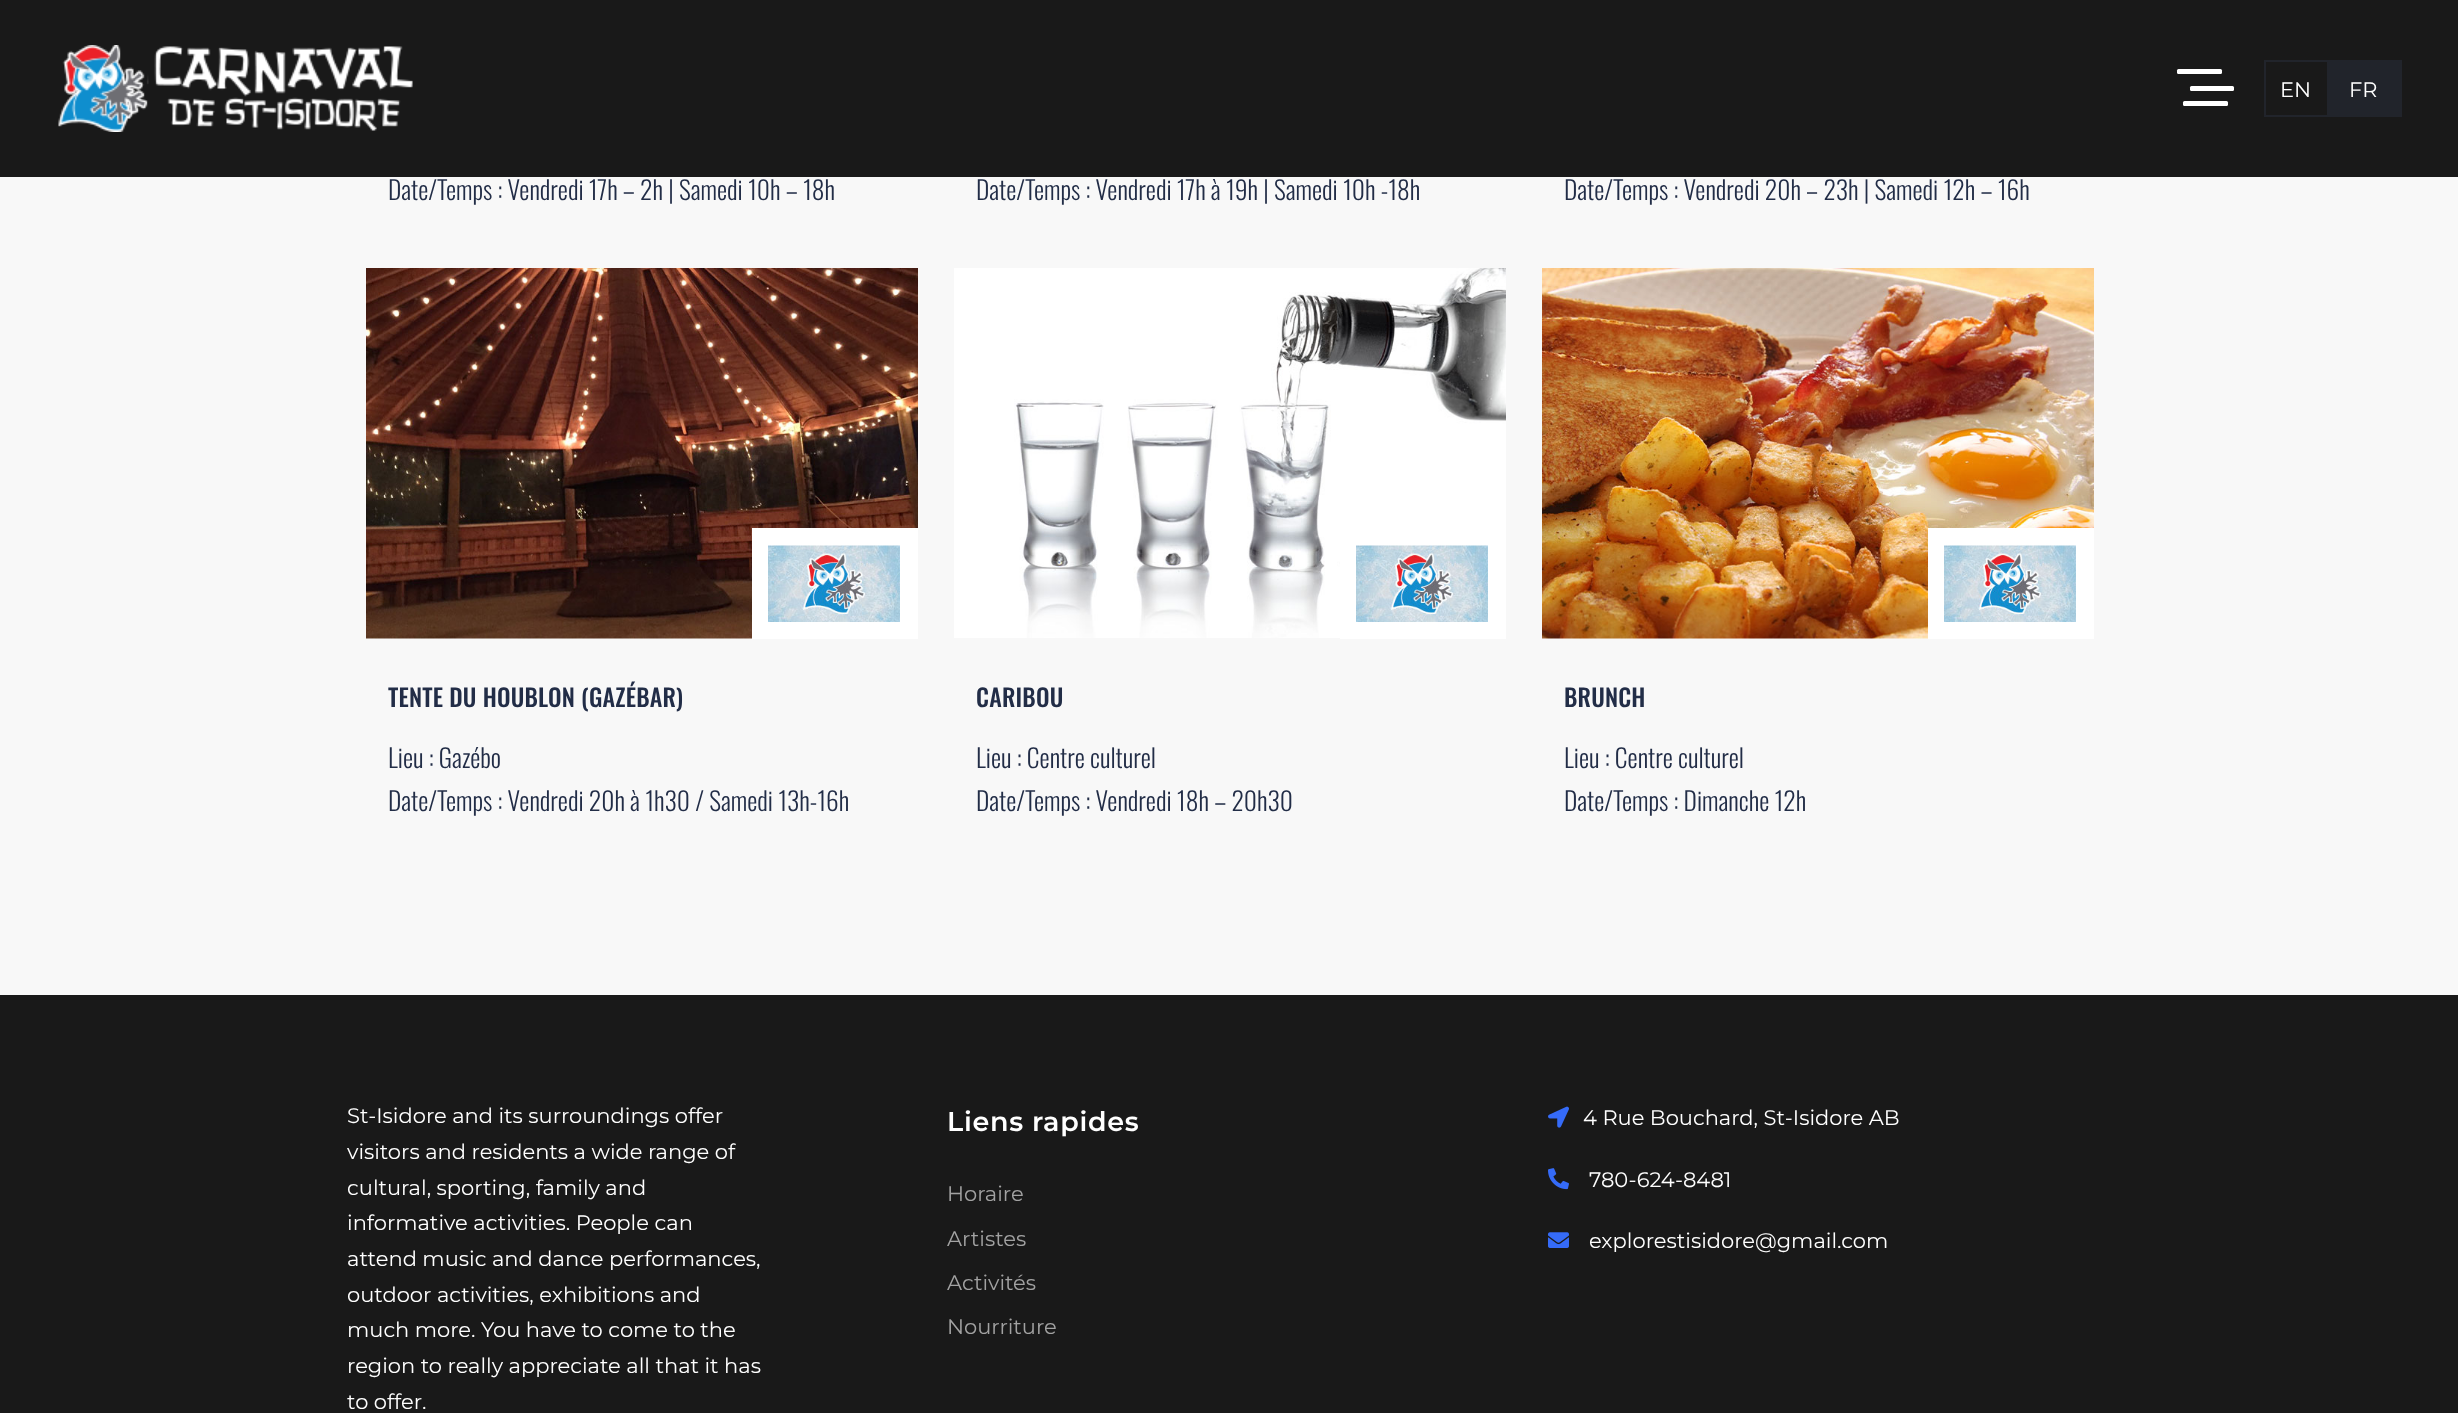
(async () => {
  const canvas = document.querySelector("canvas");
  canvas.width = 2458;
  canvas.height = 1413;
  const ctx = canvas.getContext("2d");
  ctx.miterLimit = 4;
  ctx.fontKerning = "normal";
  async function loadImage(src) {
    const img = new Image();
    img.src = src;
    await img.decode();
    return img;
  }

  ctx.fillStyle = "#191919";
  ctx.fillRect(0, 0, 2458, 1413);
  ctx.drawImage(await loadImage("img/1.png"), 58, 45, 355, 87);
  ctx.fillStyle = "#ffffff";
  ctx.beginPath();
  ctx.roundRect(2177, 69, 45, 5, 1.5);
  ctx.fill();
  ctx.beginPath();
  ctx.roundRect(2190, 86, 44, 5, 1.5);
  ctx.fill();
  ctx.beginPath();
  ctx.roundRect(2183, 101, 45, 5, 1.5);
  ctx.fill();
  ctx.strokeStyle = "#21242b";
  ctx.lineWidth = 2;
  ctx.strokeRect(2265, 61, 136, 55);
  ctx.fillStyle = "#21242b";
  ctx.fillRect(2327, 62, 73, 53);
  ctx.fillStyle = "#f8f8f8";
  ctx.fillRect(0, 177, 2458, 818);
  ctx.drawImage(await loadImage("img/2.png"), 366, 268, 552, 371);
  ctx.fillStyle = "#ffffff";
  ctx.fillRect(752, 528, 166, 111);
  ctx.drawImage(await loadImage("img/3.png"), 768, 545, 132, 77);
  ctx.drawImage(await loadImage("img/4.png"), 954, 268, 552, 370);
  ctx.fillRect(1340, 549, 166, 90);
  ctx.drawImage(await loadImage("img/5.png"), 1356, 545, 132, 77);
  ctx.drawImage(await loadImage("img/6.png"), 1542, 268, 552, 371);
  ctx.fillRect(1928, 528, 166, 111);
  ctx.drawImage(await loadImage("img/7.png"), 1944, 545, 132, 77);
  ctx.drawImage(await loadImage("img/8.png"), 1548, 1106, 21, 22);
  ctx.drawImage(await loadImage("img/9.png"), 1548, 1168, 21, 22);
  ctx.drawImage(await loadImage("img/10.png"), 1548, 1232, 21, 16);
  ctx.font = "21px Montserrat";
  ctx.fillText("EN", 2280, 97);
  ctx.fillText("FR", 2349, 97);
  ctx.font = "300 25.5px Oswald";
  ctx.fillStyle = "#222d47";
  for (const [text, x, y] of [
    ["Date/Temps : Vendredi 17h – 2h | Samedi 10h – 18h", 388, 200],
    ["Date/Temps : Vendredi 17h à 19h | Samedi 10h -18h", 976, 200],
    ["Date/Temps : Vendredi 20h – 23h | Samedi 12h – 16h", 1564, 200],
  ]) {
    ctx.fillText(text, x, y);
  }
  ctx.letterSpacing = "0.2px";
  ctx.font = "500 24px Oswald";
  ctx.fillText("TENTE DU HOUBLON (GAZÉBAR)", 388, 707);
  ctx.letterSpacing = "0px";
  ctx.font = "300 25.5px Oswald";
  ctx.fillText("Lieu : Gazébo", 388, 768);
  ctx.fillText("Date/Temps : Vendredi 20h à 1h30 / Samedi 13h-16h", 388, 811);
  ctx.letterSpacing = "0.2px";
  ctx.font = "500 24px Oswald";
  ctx.fillText("CARIBOU", 976, 707);
  ctx.letterSpacing = "0px";
  ctx.font = "300 25.5px Oswald";
  ctx.fillText("Lieu : Centre culturel", 976, 768);
  ctx.fillText("Date/Temps : Vendredi 18h – 20h30", 976, 811);
  ctx.letterSpacing = "0.2px";
  ctx.font = "500 24px Oswald";
  ctx.fillText("BRUNCH", 1564, 707);
  ctx.letterSpacing = "0px";
  ctx.font = "300 25.5px Oswald";
  ctx.fillText("Lieu : Centre culturel", 1564, 768);
  ctx.fillText("Date/Temps : Dimanche 12h", 1564, 811);
  ctx.font = "21px Montserrat";
  ctx.fillStyle = "#ffffff";
  for (const [text, x, y] of [
    ["St-Isidore and its surroundings offer", 347, 1123],
    ["visitors and residents a wide range of", 347, 1159],
    ["cultural, sporting, family and", 347, 1195],
    ["informative activities. People can", 347, 1230],
    ["attend music and dance performances,", 347, 1266],
    ["outdoor activities, exhibitions and", 347, 1302],
    ["much more. You have to come to the", 347, 1337],
    ["region to really appreciate all that it has", 347, 1373],
    ["to offer.", 347, 1409],
  ]) {
    ctx.fillText(text, x, y);
  }
  ctx.letterSpacing = "0.75px";
  ctx.font = "600 27px Montserrat";
  ctx.fillText("Liens rapides", 947, 1131);
  ctx.letterSpacing = "0px";
  ctx.font = "21px Montserrat";
  ctx.fillStyle = "#a2a2a2";
  for (const [text, x, y] of [
    ["Horaire", 947, 1201],
    ["Artistes", 947, 1246],
    ["Activités", 947, 1290],
    ["Nourriture", 947, 1334],
  ]) {
    ctx.fillText(text, x, y);
  }
  ctx.fillStyle = "#ffffff";
  for (const [text, x, y] of [
    ["4 Rue Bouchard, St-Isidore AB", 1583, 1125],
    ["780-624-8481", 1589, 1187],
    ["explorestisidore@gmail.com", 1589, 1248],
  ]) {
    ctx.fillText(text, x, y);
  }
})();
